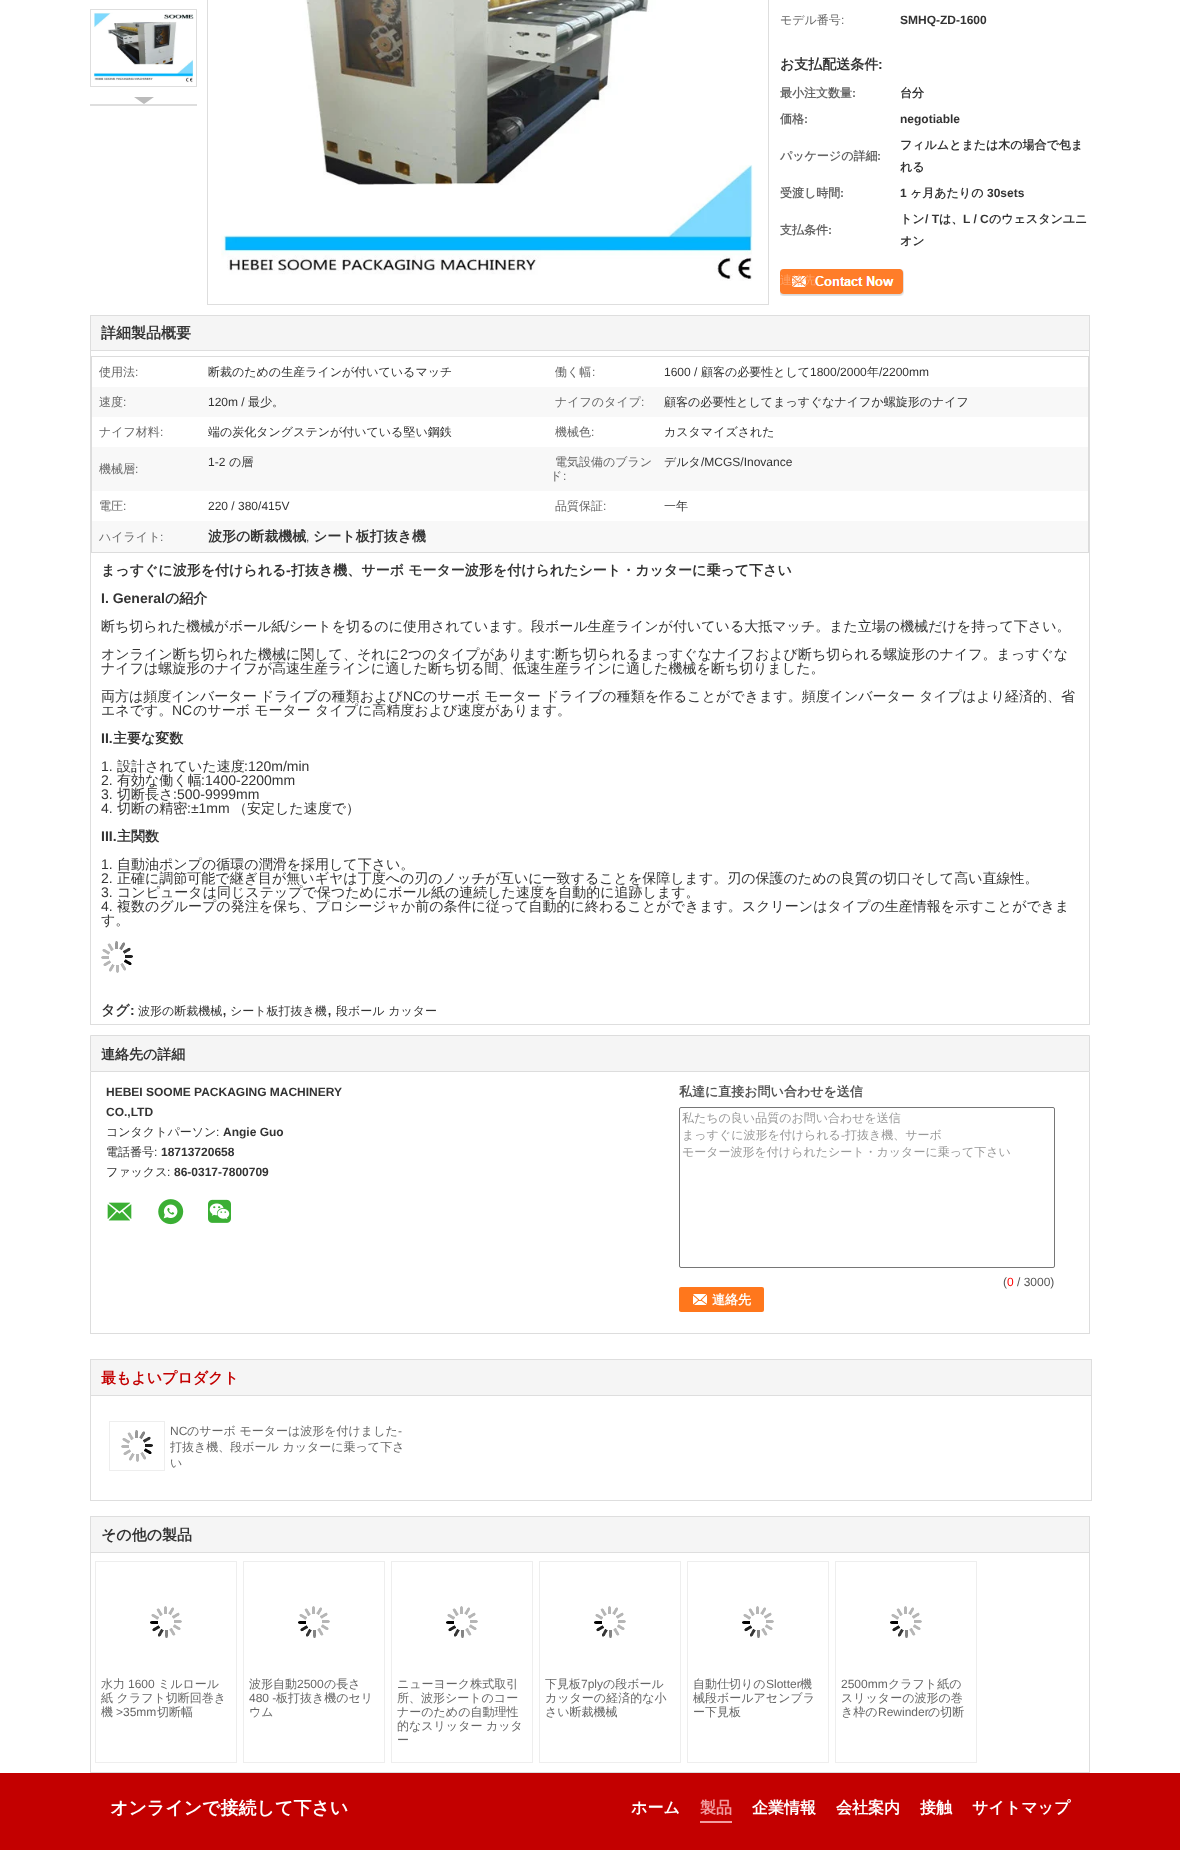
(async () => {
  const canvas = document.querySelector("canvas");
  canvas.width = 1180;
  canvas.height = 1850;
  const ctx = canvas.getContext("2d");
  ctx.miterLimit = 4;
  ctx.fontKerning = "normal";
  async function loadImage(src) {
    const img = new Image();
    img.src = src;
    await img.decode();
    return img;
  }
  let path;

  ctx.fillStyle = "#ffffff";
  ctx.fillRect(0, 0, 1180, 1850);
  ctx.strokeStyle = "#dedede";
  ctx.strokeRect(90.5, 9.5, 106, 77);
  ctx.drawImage(await loadImage("img/1.png"), 93, 12, 101, 71);
  ctx.fillStyle = "#dedede";
  ctx.fillRect(90, 104, 107, 2);
  ctx.fillStyle = "#bbbbbb";
  path = new Path2D("M134 97H154L144 104Z");
  ctx.fill(path);
  ctx.strokeRect(207.5, -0.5, 561, 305);
  ctx.drawImage(await loadImage("img/2.png"), 221, 0, 532, 281);
  ctx.drawImage(await loadImage("img/3.png"), 780, 269, 124, 27);
  ctx.strokeRect(90.5, 315.5, 999, 709);
  ctx.fillStyle = "#f5f5f5";
  ctx.fillRect(91, 316, 998, 34);
  ctx.fillStyle = "#dedede";
  ctx.fillRect(91, 350, 998, 1);
  ctx.strokeStyle = "#dcdcdc";
  ctx.strokeRect(91.5, 356.5, 997, 196);
  for (const [x, y, w, h, color] of [
    [92, 387, 996, 30, "#f8f8f8"],
    [92, 447, 996, 44, "#f8f8f8"],
    [92, 521, 996, 31, "#f8f8f8"],
  ]) {
    ctx.fillStyle = color;
    ctx.fillRect(x, y, w, h);
  }
  ctx.drawImage(await loadImage("img/4.png"), 101, 941, 32, 32);
  ctx.fillStyle = "#f5f5f5";
  ctx.beginPath();
  ctx.rect(90.5, 1035.5, 999, 36);
  ctx.fill();
  ctx.strokeStyle = "#dddddd";
  ctx.stroke();
  for (const [x, y, w, h, color] of [
    [1089, 1072, 1, 262, "#dddddd"],
    [90, 1333, 1000, 1, "#dddddd"],
    [90, 1072, 1, 262, "#dddddd"],
  ]) {
    ctx.fillStyle = color;
    ctx.fillRect(x, y, w, h);
  }
  ctx.drawImage(await loadImage("img/5.png"), 107, 1202, 25, 19);
  ctx.drawImage(await loadImage("img/6.png"), 158, 1199, 26, 26);
  ctx.drawImage(await loadImage("img/7.png"), 208, 1199, 23, 24);
  ctx.beginPath();
  ctx.roundRect(679.5, 1107.5, 375, 160, 1.5);
  ctx.strokeStyle = "#767676";
  ctx.stroke();
  ctx.fillStyle = "#ff771c";
  ctx.beginPath();
  ctx.roundRect(679, 1287, 85, 25, 2);
  ctx.fill();
  ctx.drawImage(await loadImage("img/8.png"), 693, 1294, 14, 11);
  ctx.strokeStyle = "#dedede";
  ctx.strokeRect(90.5, 1359.5, 1001, 141);
  ctx.fillStyle = "#f5f5f5";
  ctx.fillRect(91, 1360, 1000, 35);
  ctx.fillStyle = "#dedede";
  ctx.fillRect(91, 1395, 1000, 1);
  ctx.strokeStyle = "#eeeeee";
  ctx.strokeRect(109.5, 1421.5, 55, 49);
  ctx.drawImage(await loadImage("img/4.png"), 121, 1430, 32, 32);
  ctx.strokeStyle = "#dedede";
  ctx.strokeRect(90.5, 1516.5, 999, 256);
  ctx.fillStyle = "#f5f5f5";
  ctx.fillRect(91, 1517, 998, 35);
  ctx.fillStyle = "#dedede";
  ctx.fillRect(91, 1552, 998, 1);
  ctx.strokeStyle = "#eeeeee";
  ctx.strokeRect(95.5, 1561.5, 141, 201);
  ctx.drawImage(await loadImage("img/9.png"), 150, 1606, 32, 32);
  ctx.strokeRect(243.5, 1561.5, 141, 201);
  ctx.drawImage(await loadImage("img/9.png"), 298, 1606, 32, 32);
  ctx.strokeRect(391.5, 1561.5, 141, 201);
  ctx.drawImage(await loadImage("img/9.png"), 446, 1606, 32, 32);
  ctx.strokeRect(539.5, 1561.5, 141, 201);
  ctx.drawImage(await loadImage("img/9.png"), 594, 1606, 32, 32);
  ctx.strokeRect(687.5, 1561.5, 141, 201);
  ctx.drawImage(await loadImage("img/9.png"), 742, 1606, 32, 32);
  ctx.strokeRect(835.5, 1561.5, 141, 201);
  ctx.drawImage(await loadImage("img/9.png"), 890, 1606, 32, 32);
  ctx.fillStyle = "#c30000";
  ctx.fillRect(0, 1773, 1180, 77);
  ctx.fillStyle = "#f29c9f";
  ctx.fillRect(700, 1821, 32, 2);
  ctx.font = "500 12px WenQuanYi Zen Hei";
  ctx.fillStyle = "#666666";
  ctx.fillText("モデル番号", 780, 24);
  ctx.font = "12px Liberation Sans";
  ctx.fillText(":", 841, 24);
  ctx.font = "bold 12px Liberation Sans";
  ctx.fillStyle = "#333333";
  ctx.fillText("SMHQ-ZD-1600", 900, 24);
  ctx.font = "bold 14px WenQuanYi Zen Hei";
  ctx.fillText("お支払配送条件", 780, 69);
  ctx.font = "bold 14px Liberation Sans";
  ctx.fillText(":", 878, 69);
  ctx.font = "bold 12px WenQuanYi Zen Hei";
  ctx.fillStyle = "#666666";
  ctx.fillText("最小注文数量", 780, 97);
  ctx.font = "bold 12px Liberation Sans";
  ctx.fillText(":", 852, 97);
  ctx.font = "bold 12px WenQuanYi Zen Hei";
  ctx.fillStyle = "#333333";
  ctx.fillText("台分", 900, 97);
  ctx.fillStyle = "#666666";
  ctx.fillText("価格", 780, 123);
  ctx.font = "bold 12px Liberation Sans";
  ctx.fillText(":", 804, 123);
  ctx.fillStyle = "#333333";
  ctx.fillText("negotiable", 900, 123);
  ctx.font = "bold 12px WenQuanYi Zen Hei";
  ctx.fillStyle = "#666666";
  ctx.fillText("パッケージの詳細", 780, 160);
  ctx.font = "bold 12px Liberation Sans";
  ctx.fillText(":", 877, 160);
  ctx.font = "bold 12px WenQuanYi Zen Hei";
  ctx.fillStyle = "#333333";
  ctx.fillText("フィルムとまたは木の場合で包ま", 900, 149);
  ctx.fillText("れる", 900, 171);
  ctx.fillStyle = "#666666";
  ctx.fillText("受渡し時間", 780, 197);
  ctx.font = "bold 12px Liberation Sans";
  ctx.fillText(":", 840, 197);
  ctx.fillStyle = "#333333";
  ctx.fillText("1", 900, 197);
  ctx.font = "bold 12px WenQuanYi Zen Hei";
  ctx.fillText("ヶ月あたりの", 910, 197);
  ctx.font = "bold 12px Liberation Sans";
  ctx.fillText("30sets", 987, 197);
  ctx.font = "bold 12px WenQuanYi Zen Hei";
  ctx.fillStyle = "#666666";
  ctx.fillText("支払条件", 780, 234);
  ctx.font = "bold 12px Liberation Sans";
  ctx.fillText(":", 828, 234);
  ctx.font = "bold 12px WenQuanYi Zen Hei";
  ctx.fillStyle = "#333333";
  ctx.fillText("トン", 900, 223);
  ctx.font = "bold 12px Liberation Sans";
  ctx.fillText("/ T", 925, 223);
  ctx.font = "bold 12px WenQuanYi Zen Hei";
  ctx.fillText("は、", 939, 223);
  ctx.font = "bold 12px Liberation Sans";
  ctx.fillText("L / C", 963, 223);
  ctx.font = "bold 12px WenQuanYi Zen Hei";
  ctx.fillText("のウェスタンユニ", 989, 223);
  ctx.fillText("オン", 900, 245);
  ctx.font = "500 12px WenQuanYi Zen Hei";
  ctx.fillStyle = "#ffa266";
  ctx.fillText("連絡先", 780, 284);
  ctx.font = "bold 15px WenQuanYi Zen Hei";
  ctx.fillStyle = "#333333";
  ctx.fillText("詳細製品概要", 101, 338);
  ctx.font = "500 12px WenQuanYi Zen Hei";
  ctx.fillStyle = "#666666";
  ctx.fillText("使用法", 99, 376);
  ctx.font = "12px Liberation Sans";
  ctx.fillText(":", 135, 376);
  ctx.font = "500 12px WenQuanYi Zen Hei";
  ctx.fillStyle = "#333333";
  ctx.fillText("断裁のための生産ラインが付いているマッチ", 208, 376);
  ctx.fillStyle = "#666666";
  ctx.fillText("働く幅", 555, 376);
  ctx.font = "12px Liberation Sans";
  ctx.fillText(":", 592, 376);
  ctx.fillStyle = "#333333";
  ctx.fillText("1600 /", 664, 376);
  ctx.font = "500 12px WenQuanYi Zen Hei";
  ctx.fillText("顧客の必要性として", 701, 376);
  ctx.font = "12px Liberation Sans";
  ctx.fillText("1800/2000", 810, 376);
  ctx.font = "500 12px WenQuanYi Zen Hei";
  ctx.fillText("年", 867, 376);
  ctx.font = "12px Liberation Sans";
  ctx.fillText("/2200mm", 879, 376);
  ctx.font = "500 12px WenQuanYi Zen Hei";
  ctx.fillStyle = "#666666";
  ctx.fillText("速度", 99, 406);
  ctx.font = "12px Liberation Sans";
  ctx.fillText(":", 123, 406);
  ctx.fillStyle = "#333333";
  ctx.fillText("120m /", 208, 406);
  ctx.font = "500 12px WenQuanYi Zen Hei";
  ctx.fillText("最少。", 248, 406);
  ctx.fillStyle = "#666666";
  ctx.fillText("ナイフのタイプ", 555, 406);
  ctx.font = "12px Liberation Sans";
  ctx.fillText(":", 641, 406);
  ctx.font = "500 12px WenQuanYi Zen Hei";
  ctx.fillStyle = "#333333";
  ctx.fillText("顧客の必要性としてまっすぐなナイフか螺旋形のナイフ", 664, 406);
  ctx.fillStyle = "#666666";
  ctx.fillText("ナイフ材料", 99, 436);
  ctx.font = "12px Liberation Sans";
  ctx.fillText(":", 160, 436);
  ctx.font = "500 12px WenQuanYi Zen Hei";
  ctx.fillStyle = "#333333";
  ctx.fillText("端の炭化タングステンが付いている堅い鋼鉄", 208, 436);
  ctx.fillStyle = "#666666";
  ctx.fillText("機械色", 555, 436);
  ctx.font = "12px Liberation Sans";
  ctx.fillText(":", 591, 436);
  ctx.font = "500 12px WenQuanYi Zen Hei";
  ctx.fillStyle = "#333333";
  ctx.fillText("カスタマイズされた", 664, 436);
  ctx.fillStyle = "#666666";
  ctx.fillText("機械層", 99, 473);
  ctx.font = "12px Liberation Sans";
  ctx.fillText(":", 135, 473);
  ctx.fillStyle = "#333333";
  ctx.fillText("1-2", 208, 466);
  ctx.font = "500 12px WenQuanYi Zen Hei";
  ctx.fillText("の層", 229, 466);
  ctx.fillStyle = "#666666";
  ctx.fillText("電気設備のブラン", 555, 466);
  ctx.fillText("ド", 550, 480);
  ctx.font = "12px Liberation Sans";
  ctx.fillText(":", 563, 480);
  ctx.font = "500 12px WenQuanYi Zen Hei";
  ctx.fillStyle = "#333333";
  ctx.fillText("デルタ", 664, 466);
  ctx.font = "12px Liberation Sans";
  ctx.fillText("/MCGS/Inovance", 701, 466);
  ctx.font = "500 12px WenQuanYi Zen Hei";
  ctx.fillStyle = "#666666";
  ctx.fillText("電圧", 99, 510);
  ctx.font = "12px Liberation Sans";
  ctx.fillText(":", 123, 510);
  ctx.fillStyle = "#333333";
  ctx.fillText("220 / 380/415V", 208, 510);
  ctx.font = "500 12px WenQuanYi Zen Hei";
  ctx.fillStyle = "#666666";
  ctx.fillText("品質保証", 555, 510);
  ctx.font = "12px Liberation Sans";
  ctx.fillText(":", 603, 510);
  ctx.font = "500 12px WenQuanYi Zen Hei";
  ctx.fillStyle = "#333333";
  ctx.fillText("一年", 664, 510);
  ctx.fillStyle = "#666666";
  ctx.fillText("ハイライト", 99, 541);
  ctx.font = "12px Liberation Sans";
  ctx.fillText(":", 160, 541);
  ctx.font = "bold 14px WenQuanYi Zen Hei";
  ctx.fillStyle = "#333333";
  ctx.fillText("波形の断裁機械", 208, 541);
  ctx.font = "12px Liberation Sans";
  ctx.fillText(",", 306, 541);
  ctx.font = "bold 14px WenQuanYi Zen Hei";
  ctx.fillText("シート板打抜き機", 313, 541);
  ctx.fillText("まっすぐに波形を付けられる", 101, 575);
  ctx.font = "bold 14px Liberation Sans";
  ctx.fillText("-", 286, 575);
  ctx.font = "bold 14px WenQuanYi Zen Hei";
  ctx.fillText("打抜き機、サーボ モーター波形を付けられたシート・カッターに乗って下さい", 291, 575);
  ctx.font = "bold 14px Liberation Sans";
  ctx.fillText("I. General", 101, 603);
  ctx.font = "bold 14px WenQuanYi Zen Hei";
  ctx.fillText("の紹介", 165, 603);
  ctx.font = "500 14px WenQuanYi Zen Hei";
  ctx.fillText("断ち切られた機械がボール紙", 101, 631);
  ctx.font = "14px Liberation Sans";
  ctx.fillText("/", 285, 631);
  ctx.font = "500 14px WenQuanYi Zen Hei";
  ctx.fillText("シートを切るのに使用されています。段ボール生産ラインが付いている大抵マッチ。また立場の機械だけを持って下さい。", 289, 631);
  ctx.fillText("オンライン断ち切られた機械に関して、それに", 101, 659);
  ctx.font = "14px Liberation Sans";
  ctx.fillText("2", 400, 659);
  ctx.font = "500 14px WenQuanYi Zen Hei";
  ctx.fillText("つのタイプがあります", 408, 659);
  ctx.font = "14px Liberation Sans";
  ctx.fillText(":", 551, 659);
  ctx.font = "500 14px WenQuanYi Zen Hei";
  for (const [text, x, y] of [
    ["断ち切られるまっすぐなナイフおよび断ち切られる螺旋形のナイフ。まっすぐな", 555, 659],
    ["ナイフは螺旋形のナイフが高速生産ラインに適した断ち切る間、低速生産ラインに適した機械を断ち切りました。", 101, 673],
    ["両方は頻度インバーター", 101, 701],
    ["ドライブの種類および", 260, 701],
  ]) {
    ctx.fillText(text, x, y);
  }
  ctx.font = "14px Liberation Sans";
  ctx.fillText("NC", 403, 701);
  ctx.font = "500 14px WenQuanYi Zen Hei";
  ctx.fillText("のサーボ モーター ドライブの種類を作ることができます。頻度インバーター タイプはより経済的、省", 423, 701);
  ctx.fillText("エネです。", 101, 715);
  ctx.font = "14px Liberation Sans";
  ctx.fillText("NC", 172, 715);
  ctx.font = "500 14px WenQuanYi Zen Hei";
  ctx.fillText("のサーボ モーター タイプに高精度および速度があります。", 193, 715);
  ctx.font = "bold 14px Liberation Sans";
  ctx.fillText("II.", 101, 743);
  ctx.font = "bold 14px WenQuanYi Zen Hei";
  ctx.fillText("主要な変数", 113, 743);
  ctx.font = "14px Liberation Sans";
  ctx.fillText("1.", 101, 771);
  ctx.font = "500 14px WenQuanYi Zen Hei";
  ctx.fillText("設計されていた速度", 117, 771);
  ctx.font = "14px Liberation Sans";
  ctx.fillText(":120m/min", 244, 771);
  ctx.fillText("2.", 101, 785);
  ctx.font = "500 14px WenQuanYi Zen Hei";
  ctx.fillText("有効な働く幅", 117, 785);
  ctx.font = "14px Liberation Sans";
  ctx.fillText(":1400-2200mm", 201, 785);
  ctx.fillText("3.", 101, 799);
  ctx.font = "500 14px WenQuanYi Zen Hei";
  ctx.fillText("切断長さ", 117, 799);
  ctx.font = "14px Liberation Sans";
  ctx.fillText(":500-9999mm", 173, 799);
  ctx.fillText("4.", 101, 813);
  ctx.font = "500 14px WenQuanYi Zen Hei";
  ctx.fillText("切断の精密", 117, 813);
  ctx.font = "14px Liberation Sans";
  ctx.fillText(":±1mm", 187, 813);
  ctx.font = "500 14px WenQuanYi Zen Hei";
  ctx.fillText("（安定した速度で）", 233, 813);
  ctx.font = "bold 14px Liberation Sans";
  ctx.fillText("III.", 101, 841);
  ctx.font = "bold 14px WenQuanYi Zen Hei";
  ctx.fillText("主関数", 117, 841);
  ctx.font = "14px Liberation Sans";
  ctx.fillText("1.", 101, 869);
  ctx.font = "500 14px WenQuanYi Zen Hei";
  ctx.fillText("自動油ポンプの循環の潤滑を採用して下さい。", 117, 869);
  ctx.font = "14px Liberation Sans";
  ctx.fillText("2.", 101, 883);
  ctx.font = "500 14px WenQuanYi Zen Hei";
  ctx.fillText("正確に調節可能で継ぎ目が無いギヤは丁度への刃のノッチが互いに一致することを保障します。刃の保護のための良質の切口そして高い直線性。", 117, 883);
  ctx.font = "14px Liberation Sans";
  ctx.fillText("3.", 101, 897);
  ctx.font = "500 14px WenQuanYi Zen Hei";
  ctx.fillText("コンピュータは同じステップで保つためにボール紙の連続した速度を自動的に追跡します。", 117, 897);
  ctx.font = "14px Liberation Sans";
  ctx.fillText("4.", 101, 911);
  ctx.font = "500 14px WenQuanYi Zen Hei";
  ctx.fillText("複数のグループの発注を保ち、プロシージャか前の条件に従って自動的に終わることができます。スクリーンはタイプの生産情報を示すことができま", 117, 911);
  ctx.fillText("す。", 101, 925);
  ctx.font = "bold 14px WenQuanYi Zen Hei";
  ctx.fillText("タグ", 101, 1015);
  ctx.font = "bold 14px Liberation Sans";
  ctx.fillText(":", 130, 1015);
  ctx.font = "500 12px WenQuanYi Zen Hei";
  ctx.fillText("波形の断裁機械", 138, 1015);
  ctx.font = "18px Liberation Sans";
  ctx.fillText(",", 222, 1015);
  ctx.font = "500 12px WenQuanYi Zen Hei";
  ctx.fillText("シート板打抜き機", 230, 1015);
  ctx.font = "18px Liberation Sans";
  ctx.fillText(",", 327, 1015);
  ctx.font = "500 12px WenQuanYi Zen Hei";
  ctx.fillText("段ボール カッター", 336, 1015);
  ctx.font = "bold 14px WenQuanYi Zen Hei";
  ctx.fillText("連絡先の詳細", 101, 1059);
  ctx.font = "bold 12px Liberation Sans";
  ctx.fillText("HEBEI SOOME PACKAGING MACHINERY", 106, 1096);
  ctx.fillText("CO.,LTD", 106, 1116);
  ctx.font = "500 12px WenQuanYi Zen Hei";
  ctx.fillText("コンタクトパーソン", 106, 1136);
  ctx.font = "12px Liberation Sans";
  ctx.fillText(":", 216, 1136);
  ctx.font = "bold 12px Liberation Sans";
  ctx.fillText("Angie Guo", 223, 1136);
  ctx.font = "500 12px WenQuanYi Zen Hei";
  ctx.fillText("電話番号", 106, 1156);
  ctx.font = "12px Liberation Sans";
  ctx.fillText(":", 154, 1156);
  ctx.font = "bold 12px Liberation Sans";
  ctx.fillText("18713720658", 161, 1156);
  ctx.font = "500 12px WenQuanYi Zen Hei";
  ctx.fillText("ファックス", 106, 1176);
  ctx.font = "12px Liberation Sans";
  ctx.fillText(":", 167, 1176);
  ctx.font = "bold 12px Liberation Sans";
  ctx.fillText("86-0317-7800709", 174, 1176);
  ctx.font = "bold 13px WenQuanYi Zen Hei";
  ctx.fillStyle = "#555555";
  ctx.fillText("私達に直接お問い合わせを送信", 679, 1096);
  ctx.font = "500 12px WenQuanYi Zen Hei";
  ctx.fillStyle = "#999999";
  ctx.fillText("私たちの良い品質のお問い合わせを送信", 682, 1122);
  ctx.fillText("まっすぐに波形を付けられる", 682, 1139);
  ctx.font = "12px Liberation Serif";
  ctx.fillText("-", 841, 1139);
  ctx.font = "500 12px WenQuanYi Zen Hei";
  ctx.fillText("打抜き機、サーボ", 845, 1139);
  ctx.fillText("モーター波形を付けられたシート・カッターに乗って下さい", 682, 1156);
  ctx.font = "12px Liberation Sans";
  ctx.fillStyle = "#555555";
  ctx.fillText("(", 1003, 1286);
  ctx.fillStyle = "#ff0000";
  ctx.fillText("0", 1007, 1286);
  ctx.fillStyle = "#555555";
  ctx.fillText("/ 3000)", 1017, 1286);
  ctx.font = "bold 13px WenQuanYi Zen Hei";
  ctx.fillStyle = "#ffffff";
  ctx.fillText("連絡先", 712, 1304);
  ctx.font = "bold 15px WenQuanYi Zen Hei";
  ctx.fillStyle = "#c30000";
  ctx.fillText("最もよいプロダクト", 101, 1383);
  ctx.font = "12px Liberation Sans";
  ctx.fillStyle = "#666666";
  ctx.fillText("NC", 170, 1435);
  ctx.font = "500 12px WenQuanYi Zen Hei";
  ctx.fillText("のサーボ モーターは波形を付けました", 187, 1435);
  ctx.font = "12px Liberation Sans";
  ctx.fillText("-", 398, 1435);
  ctx.font = "500 12px WenQuanYi Zen Hei";
  ctx.fillText("打抜き機、段ボール カッターに乗って下さ", 170, 1451);
  ctx.fillText("い", 170, 1467);
  ctx.font = "bold 15px WenQuanYi Zen Hei";
  ctx.fillStyle = "#333333";
  ctx.fillText("その他の製品", 101, 1540);
  ctx.font = "500 12px WenQuanYi Zen Hei";
  ctx.fillStyle = "#666666";
  ctx.fillText("水力", 101, 1688);
  ctx.font = "12px Liberation Sans";
  ctx.fillText("1600", 128, 1688);
  ctx.font = "500 12px WenQuanYi Zen Hei";
  for (const [text, x, y] of [
    ["ミルロール", 158, 1688],
    ["紙 クラフト切断回巻き", 101, 1702],
    ["機", 101, 1716],
  ]) {
    ctx.fillText(text, x, y);
  }
  ctx.font = "12px Liberation Sans";
  ctx.fillText(">35mm", 116, 1716);
  ctx.font = "500 12px WenQuanYi Zen Hei";
  ctx.fillText("切断幅", 157, 1716);
  ctx.fillText("波形自動", 249, 1688);
  ctx.font = "12px Liberation Sans";
  ctx.fillText("2500", 297, 1688);
  ctx.font = "500 12px WenQuanYi Zen Hei";
  ctx.fillText("の長さ", 324, 1688);
  ctx.font = "12px Liberation Sans";
  ctx.fillText("480 -", 249, 1702);
  ctx.font = "500 12px WenQuanYi Zen Hei";
  for (const [text, x, y] of [
    ["板打抜き機のセリ", 276, 1702],
    ["ウム", 249, 1716],
    ["ニューヨーク株式取引", 397, 1688],
    ["所、波形シートのコー", 397, 1702],
    ["ナーのための自動理性", 397, 1716],
    ["的なスリッター カッタ", 397, 1730],
    ["ー", 397, 1744],
    ["下見板", 545, 1688],
  ]) {
    ctx.fillText(text, x, y);
  }
  ctx.font = "12px Liberation Sans";
  ctx.fillText("7ply", 581, 1688);
  ctx.font = "500 12px WenQuanYi Zen Hei";
  for (const [text, x, y] of [
    ["の段ボール", 603, 1688],
    ["カッターの経済的な小", 545, 1702],
    ["さい断裁機械", 545, 1716],
    ["自動仕切りの", 693, 1688],
  ]) {
    ctx.fillText(text, x, y);
  }
  ctx.font = "12px Liberation Sans";
  ctx.fillText("Slotter", 766, 1688);
  ctx.font = "500 12px WenQuanYi Zen Hei";
  for (const [text, x, y] of [
    ["機", 800, 1688],
    ["械段ボールアセンブラ", 693, 1702],
    ["ー下見板", 693, 1716],
  ]) {
    ctx.fillText(text, x, y);
  }
  ctx.font = "12px Liberation Sans";
  ctx.fillText("2500mm", 841, 1688);
  ctx.font = "500 12px WenQuanYi Zen Hei";
  for (const [text, x, y] of [
    ["クラフト紙の", 888, 1688],
    ["スリッターの波形の巻", 841, 1702],
    ["き枠の", 841, 1716],
  ]) {
    ctx.fillText(text, x, y);
  }
  ctx.font = "12px Liberation Sans";
  ctx.fillText("Rewinder", 878, 1716);
  ctx.font = "500 12px WenQuanYi Zen Hei";
  ctx.fillText("の切断", 928, 1716);
  ctx.font = "bold 18px WenQuanYi Zen Hei";
  ctx.fillStyle = "#ffffff";
  ctx.fillText("オンラインで接続して下さい", 110, 1814);
  ctx.font = "bold 16px WenQuanYi Zen Hei";
  ctx.fillText("ホーム", 631, 1813);
  ctx.fillStyle = "#f29c9f";
  ctx.fillText("製品", 700, 1813);
  ctx.fillStyle = "#ffffff";
  for (const [text, x, y] of [
    ["企業情報", 752, 1813],
    ["会社案内", 836, 1813],
    ["接触", 920, 1813],
    ["サイトマップ", 972, 1813],
  ]) {
    ctx.fillText(text, x, y);
  }
})();
